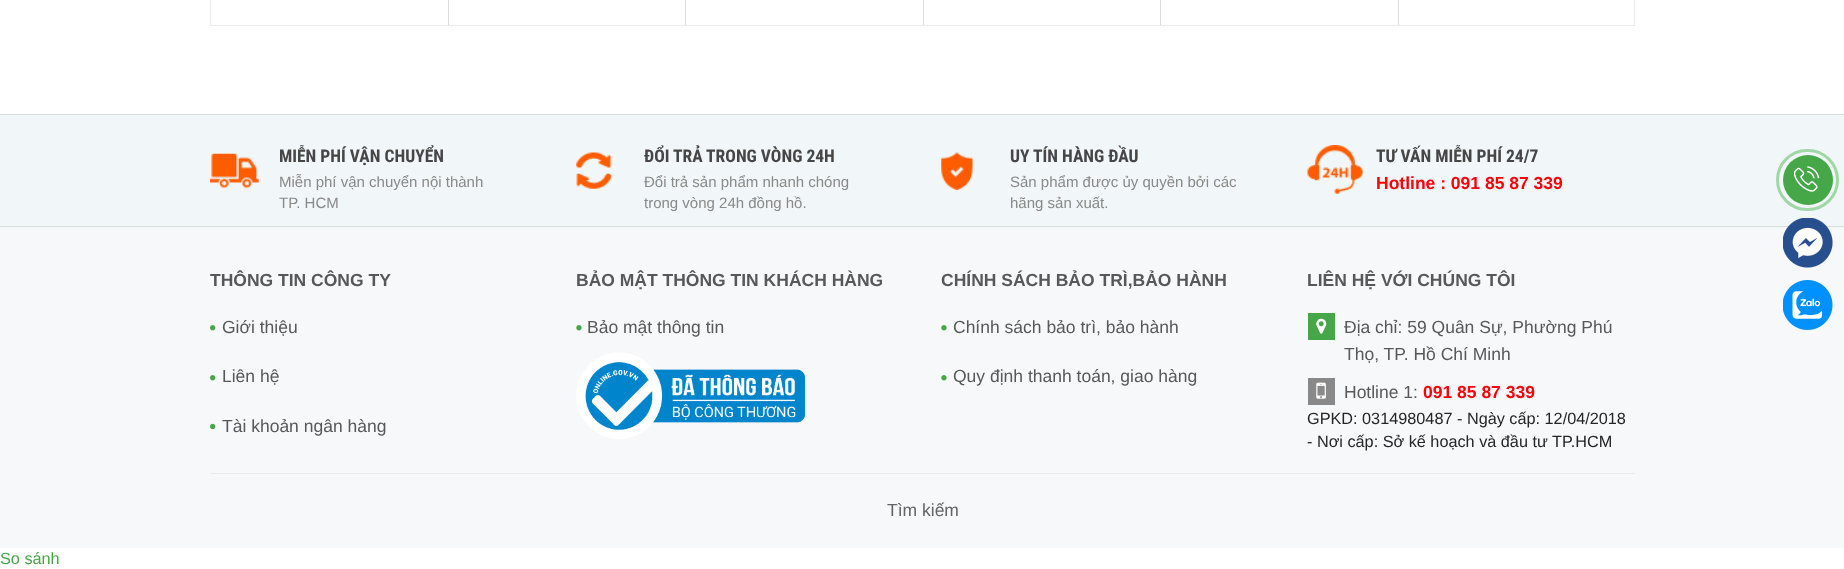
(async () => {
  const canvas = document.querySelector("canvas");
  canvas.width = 1844;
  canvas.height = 569;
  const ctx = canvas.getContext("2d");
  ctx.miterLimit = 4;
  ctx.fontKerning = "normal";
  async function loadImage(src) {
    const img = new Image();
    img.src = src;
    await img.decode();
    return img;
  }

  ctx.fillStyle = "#ffffff";
  ctx.fillRect(0, 0, 1844, 569);
  ctx.strokeStyle = "#ebebeb";
  ctx.strokeRect(210.5, -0.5, 1424, 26);
  for (const [x, y, w, h, color] of [
    [448, 0, 1, 25, "#dddddd"],
    [685, 0, 1, 25, "#dddddd"],
    [923, 0, 1, 25, "#dddddd"],
    [1160, 0, 1, 25, "#dddddd"],
    [1398, 0, 1, 25, "#dddddd"],
    [0, 115, 1844, 113, "#f1f6f8"],
    [0, 114, 1844, 1, "#dddddd"],
    [0, 226, 1844, 1, "#dddddd"],
  ]) {
    ctx.fillStyle = color;
    ctx.fillRect(x, y, w, h);
  }
  ctx.drawImage(await loadImage("img/1.png"), 210, 153, 49, 35);
  ctx.drawImage(await loadImage("img/2.png"), 576, 152, 36, 37);
  ctx.drawImage(await loadImage("img/3.png"), 941, 152, 32, 38);
  ctx.drawImage(await loadImage("img/4.png"), 1307, 145, 56, 49);
  ctx.fillStyle = "#f7f8f9";
  ctx.fillRect(0, 228, 1844, 320);
  ctx.drawImage(await loadImage("img/5.png"), 210, 325, 6, 6);
  ctx.drawImage(await loadImage("img/5.png"), 210, 375, 6, 6);
  ctx.drawImage(await loadImage("img/6.png"), 210, 423, 6, 7);
  ctx.drawImage(await loadImage("img/7.png"), 576, 325, 6, 6);
  ctx.drawImage(await loadImage("img/8.png"), 576, 352, 229, 87);
  ctx.drawImage(await loadImage("img/7.png"), 941, 325, 6, 6);
  ctx.drawImage(await loadImage("img/7.png"), 941, 375, 6, 6);
  ctx.fillStyle = "#46a748";
  ctx.fillRect(1308, 313, 27, 27);
  ctx.drawImage(await loadImage("img/9.png"), 1316, 318, 11, 16);
  ctx.fillStyle = "#898989";
  ctx.fillRect(1308, 378, 27, 27);
  ctx.drawImage(await loadImage("img/10.png"), 1316, 382, 10, 17);
  ctx.fillStyle = "#e9e9e9";
  ctx.fillRect(210, 473, 1425, 1);
  ctx.beginPath();
  ctx.roundRect(1777.5, 150.5, 60, 59, 29.5);
  ctx.strokeStyle = "#a1d6a6";
  ctx.lineWidth = 3;
  ctx.stroke();
  ctx.fillStyle = "#46a748";
  ctx.beginPath();
  ctx.arc(1808, 180, 25, 0, Math.PI * 2);
  ctx.fill();
  ctx.drawImage(await loadImage("img/11.png"), 1794, 166, 26, 26);
  ctx.drawImage(await loadImage("img/12.png"), 1783, 218, 50, 50);
  ctx.drawImage(await loadImage("img/13.png"), 1783, 280, 50, 50);
  ctx.font = "bold 17.5px Roboto Condensed";
  ctx.fillStyle = "#464646";
  ctx.fillText("MIỄN PHÍ VẬN CHUYỂN", 279, 162);
  ctx.font = "15px Liberation Sans";
  ctx.fillStyle = "#898989";
  ctx.fillText("Miễn phí vận chuyển nội thành", 279, 187);
  ctx.fillText("TP. HCM", 279, 208);
  ctx.font = "bold 17.5px Roboto Condensed";
  ctx.fillStyle = "#464646";
  ctx.fillText("ĐỔI TRẢ TRONG VÒNG 24H", 644, 162);
  ctx.font = "15px Liberation Sans";
  ctx.fillStyle = "#898989";
  ctx.fillText("Đổi trả sản phẩm nhanh chóng", 644, 187);
  ctx.fillText("trong vòng 24h đồng hồ.", 644, 208);
  ctx.font = "bold 17.5px Roboto Condensed";
  ctx.fillStyle = "#464646";
  ctx.fillText("UY TÍN HÀNG ĐẦU", 1010, 162);
  ctx.font = "15px Liberation Sans";
  ctx.fillStyle = "#898989";
  ctx.fillText("Sản phẩm được ủy quyền bởi các", 1010, 187);
  ctx.fillText("hãng sản xuất.", 1010, 208);
  ctx.font = "bold 17.5px Roboto Condensed";
  ctx.fillStyle = "#464646";
  ctx.fillText("TƯ VẤN MIỄN PHÍ 24/7", 1376, 162);
  ctx.font = "bold 17.5px Liberation Sans";
  ctx.fillStyle = "#ff000a";
  ctx.fillText("Hotline : 091 85 87 339", 1376, 189);
  ctx.fillStyle = "#585858";
  ctx.fillText("THÔNG TIN CÔNG TY", 210, 286);
  ctx.font = "17.5px Liberation Sans";
  for (const [text, x, y] of [
    ["Giới thiệu", 222, 333],
    ["Liên hệ", 222, 382],
    ["Tài khoản ngân hàng", 222, 432],
  ]) {
    ctx.fillText(text, x, y);
  }
  ctx.font = "bold 17.5px Liberation Sans";
  ctx.fillText("BẢO MẬT THÔNG TIN KHÁCH HÀNG", 576, 286);
  ctx.font = "17.5px Liberation Sans";
  ctx.fillText("Bảo mật thông tin", 587, 333);
  ctx.font = "bold 17.5px Liberation Sans";
  ctx.fillText("CHÍNH SÁCH BẢO TRÌ,BẢO HÀNH", 941, 286);
  ctx.font = "17.5px Liberation Sans";
  ctx.fillText("Chính sách bảo trì, bảo hành", 953, 333);
  ctx.fillText("Quy định thanh toán, giao hàng", 953, 382);
  ctx.font = "bold 17.5px Liberation Sans";
  ctx.fillText("LIÊN HỆ VỚI CHÚNG TÔI", 1307, 286);
  ctx.font = "17.5px Liberation Sans";
  for (const [text, x, y] of [
    ["Địa chỉ: 59 Quân Sự, Phường Phú", 1344, 333],
    ["Thọ, TP. Hồ Chí Minh", 1344, 360],
    ["Hotline 1:", 1344, 398],
  ]) {
    ctx.fillText(text, x, y);
  }
  ctx.font = "bold 17.5px Liberation Sans";
  ctx.fillStyle = "#ff000a";
  ctx.fillText("091 85 87 339", 1423, 398);
  ctx.font = "16.25px Liberation Sans";
  ctx.fillStyle = "#252525";
  ctx.fillText("GPKD: 0314980487 - Ngày cấp: 12/04/2018", 1307, 424);
  ctx.fillText("- Nơi cấp: Sở kế hoạch và đầu tư TP.HCM", 1307, 447);
  ctx.font = "17.5px Liberation Sans";
  ctx.fillStyle = "#636363";
  ctx.fillText("Tìm kiếm", 887, 516);
  ctx.font = "16.25px Liberation Sans";
  ctx.fillStyle = "#46a748";
  ctx.fillText("So sánh", 0, 564);
})();
